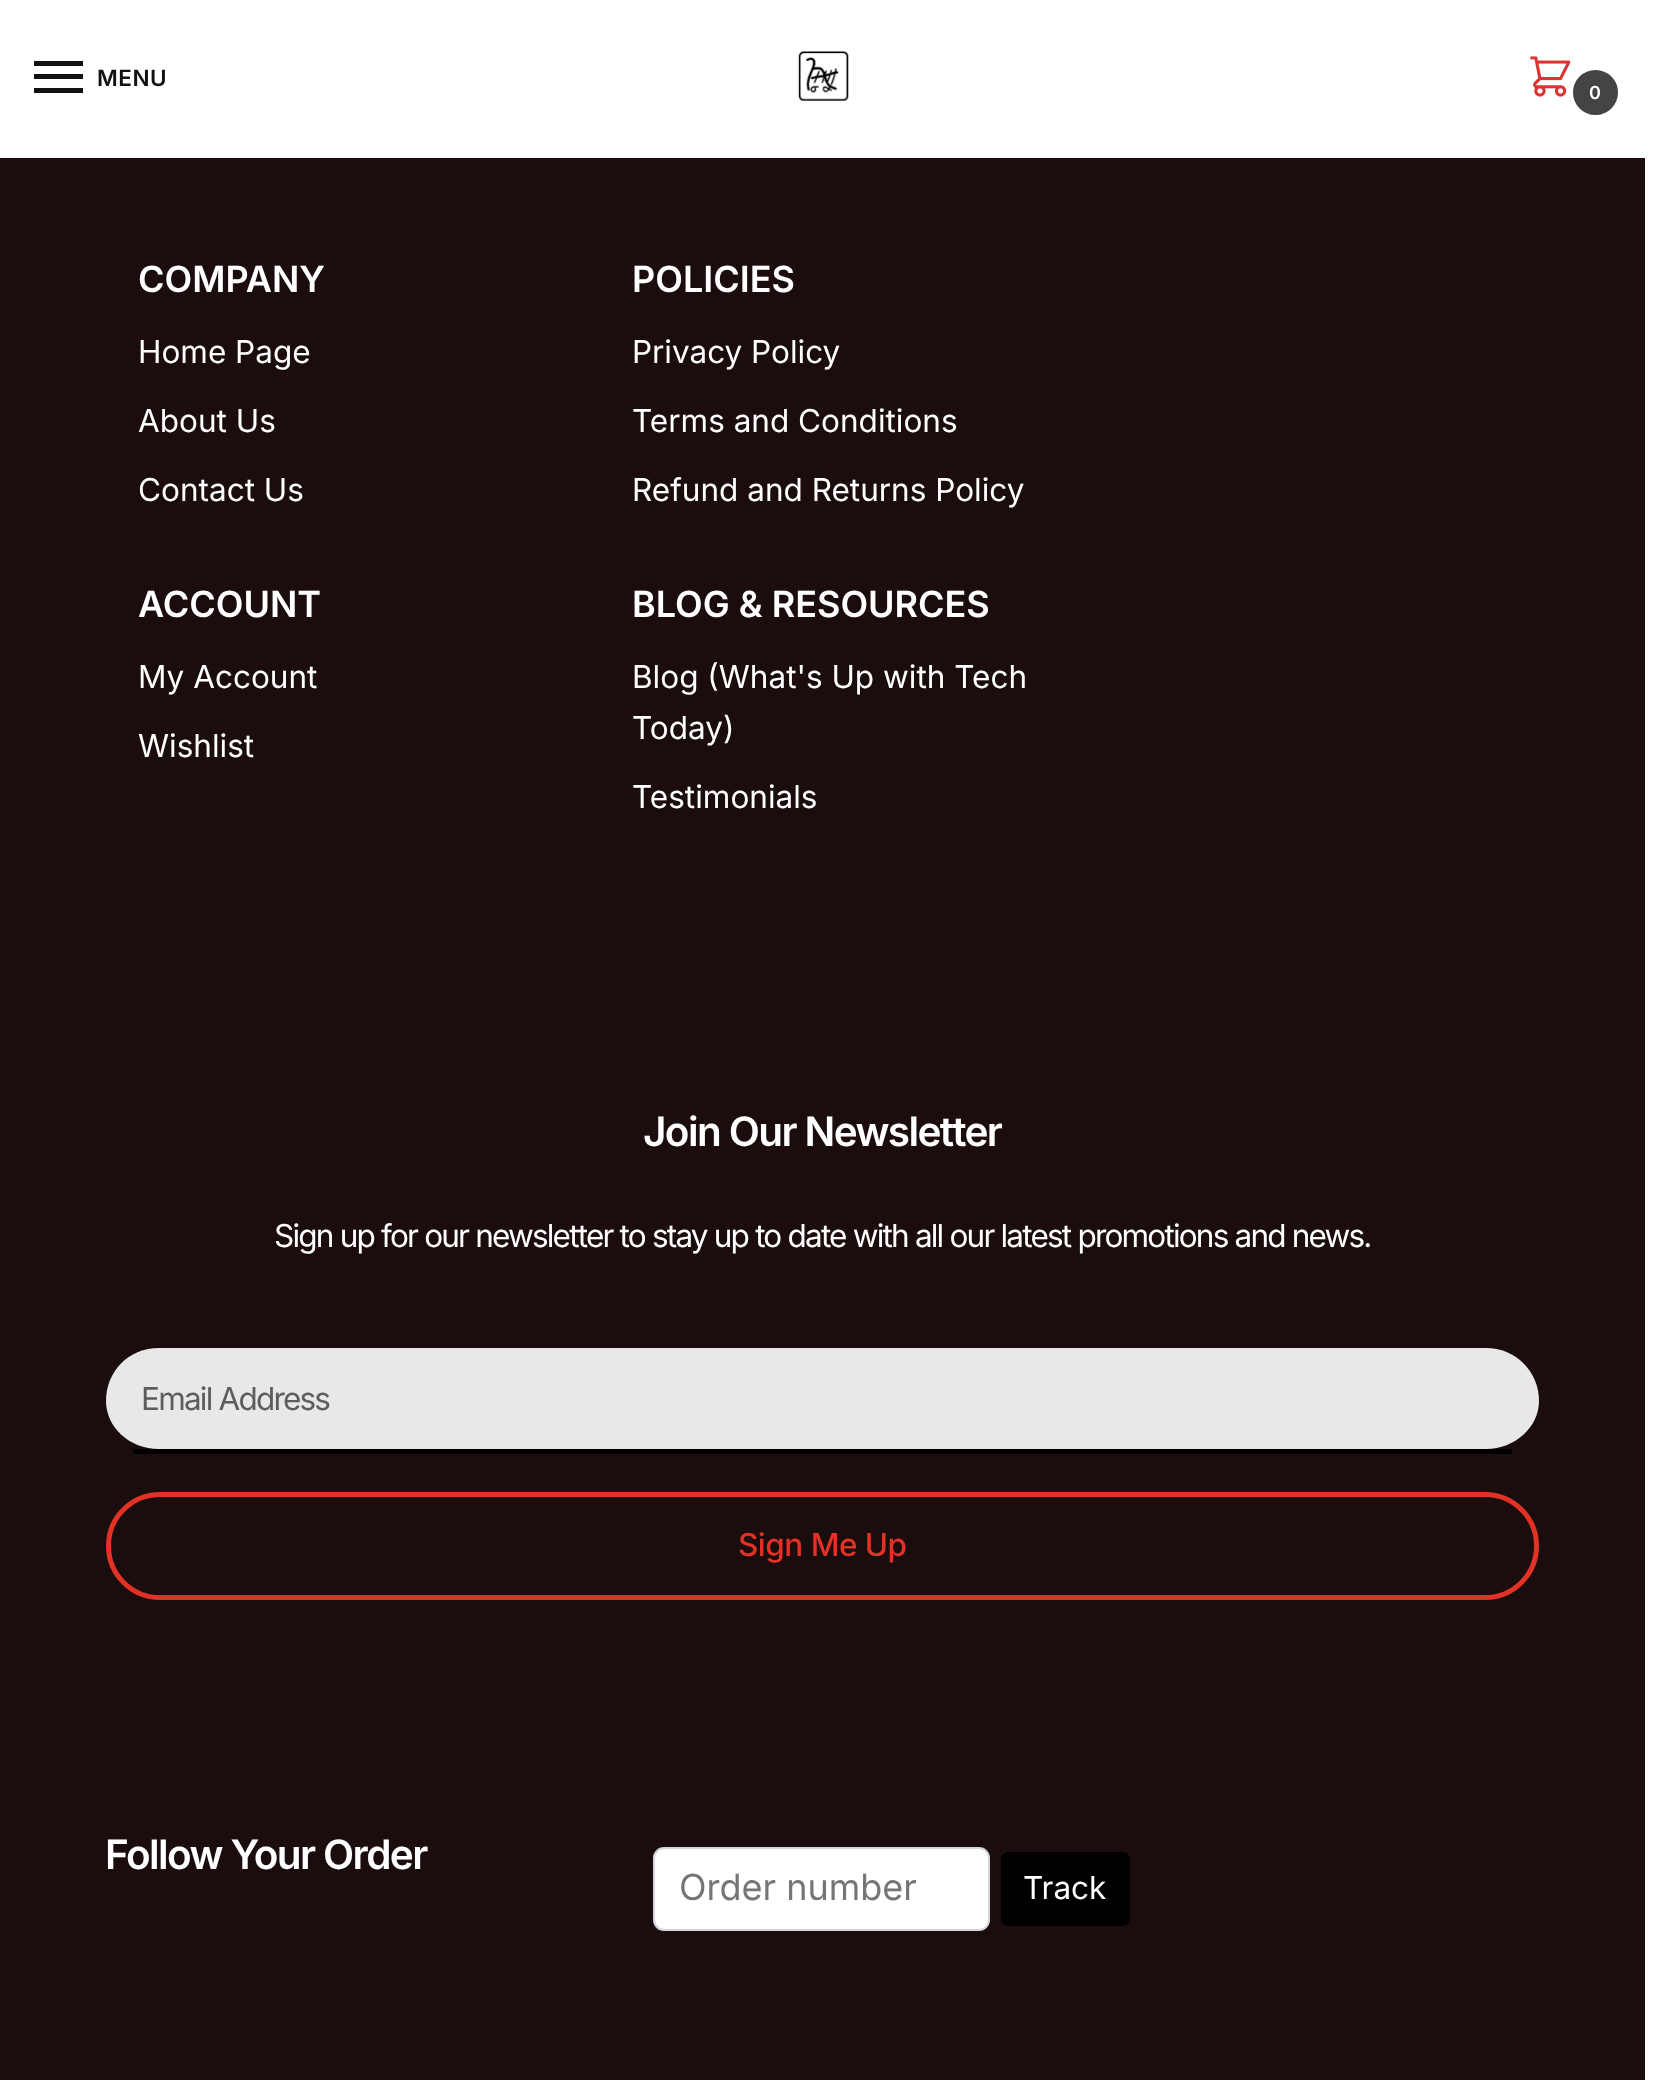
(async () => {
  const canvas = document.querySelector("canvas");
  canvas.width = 1678;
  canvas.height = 2080;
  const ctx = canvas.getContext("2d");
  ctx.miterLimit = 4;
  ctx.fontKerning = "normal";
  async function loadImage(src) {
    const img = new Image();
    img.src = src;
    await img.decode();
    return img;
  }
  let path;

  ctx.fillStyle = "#1b0d0d";
  ctx.fillRect(0, 0, 1678, 2080);
  for (const [x, y, w, h, color] of [
    [0, 0, 1645, 158, "#ffffff"],
    [34, 61, 49, 5, "#111111"],
    [34, 74, 49, 5, "#111111"],
    [34, 88, 49, 5, "#111111"],
  ]) {
    ctx.fillStyle = color;
    ctx.fillRect(x, y, w, h);
  }
  ctx.drawImage(await loadImage("img/1.png"), 798, 51, 51, 50);
  ctx.drawImage(await loadImage("img/2.png"), 1530, 56, 41, 41);
  ctx.fillStyle = "#444444";
  ctx.beginPath();
  ctx.arc(1595.5, 92.5, 21.5, 0, Math.PI * 2);
  ctx.fill();
  ctx.strokeStyle = "#444444";
  ctx.lineWidth = 2;
  ctx.stroke();
  ctx.fillStyle = "#ffffff";
  ctx.fillRect(1645, 0, 33, 2080);
  ctx.fillStyle = "#e8e8e8";
  path = new Path2D("M159 1348H1486C1515 1348 1539 1371 1539 1401C1539 1427 1515 1449 1486 1449H159C129 1449 106 1427 106 1401C106 1371 129 1348 159 1348Z");
  ctx.fill(path);
  ctx.fillStyle = "#000000";
  ctx.fillRect(133, 1449, 1379, 5);
  ctx.beginPath();
  ctx.roundRect(108.5, 1494.5, 1428, 103, 51.5);
  ctx.strokeStyle = "#e23125";
  ctx.lineWidth = 5;
  ctx.stroke();
  ctx.fillStyle = "#ffffff";
  ctx.beginPath();
  ctx.roundRect(654, 1848, 335, 82, 10);
  ctx.fill();
  ctx.strokeStyle = "#d2d6dc";
  ctx.lineWidth = 2;
  ctx.stroke();
  ctx.fillStyle = "#000000";
  ctx.beginPath();
  ctx.roundRect(1001, 1852, 129, 74, 7);
  ctx.fill();
  ctx.letterSpacing = "0.5px";
  ctx.font = "600 22.5px Inter";
  ctx.fillStyle = "#111111";
  ctx.fillText("MENU", 97, 86);
  ctx.letterSpacing = "0px";
  ctx.font = "600 18px Inter";
  ctx.fillStyle = "#ffffff";
  ctx.fillText("0", 1589, 99);
  ctx.font = "600 36px Inter";
  ctx.fillText("COMPANY", 138, 292);
  ctx.font = "31.5px Inter";
  for (const [text, x, y] of [
    ["Home Page", 138, 363],
    ["About Us", 138, 432],
    ["Contact Us", 138, 501],
  ]) {
    ctx.fillText(text, x, y);
  }
  ctx.font = "600 36px Inter";
  ctx.fillText("POLICIES", 632, 292);
  ctx.font = "31.5px Inter";
  for (const [text, x, y] of [
    ["Privacy Policy", 632, 363],
    ["Terms and Conditions", 632, 432],
    ["Refund and Returns Policy", 632, 501],
  ]) {
    ctx.fillText(text, x, y);
  }
  ctx.font = "600 36px Inter";
  ctx.fillText("ACCOUNT", 138, 617);
  ctx.font = "31.5px Inter";
  ctx.fillText("My Account", 138, 688);
  ctx.fillText("Wishlist", 138, 757);
  ctx.font = "600 36px Inter";
  ctx.fillText("BLOG & RESOURCES", 632, 617);
  ctx.font = "31.5px Inter";
  for (const [text, x, y] of [
    ["Blog (What's Up with Tech", 632, 688],
    ["Today)", 632, 739],
    ["Testimonials", 632, 808],
  ]) {
    ctx.fillText(text, x, y);
  }
  ctx.letterSpacing = "-1.6px";
  ctx.font = "600 40.5px Inter";
  ctx.fillText("Join Our Newsletter", 643, 1146);
  ctx.letterSpacing = "-1.8px";
  ctx.font = "31.5px Inter";
  ctx.fillText("Sign up for our newsletter to stay up to date with all our latest promotions and news.", 274, 1247);
  ctx.fillStyle = "#5d5d5d";
  ctx.fillText("Email Address", 141, 1410);
  ctx.letterSpacing = "-0.5px";
  ctx.font = "500 31.5px Inter";
  ctx.fillStyle = "#e23125";
  ctx.fillText("Sign Me Up", 738, 1556);
  ctx.letterSpacing = "-1.6px";
  ctx.font = "600 40.5px Inter";
  ctx.fillStyle = "#ffffff";
  ctx.fillText("Follow Your Order", 105, 1869);
  ctx.letterSpacing = "0px";
  ctx.font = "36px Inter";
  ctx.fillStyle = "#757575";
  ctx.fillText("Order number", 679, 1900);
  ctx.font = "31.5px Inter";
  ctx.fillStyle = "#ffffff";
  ctx.fillText("Track", 1023, 1899);
})();
